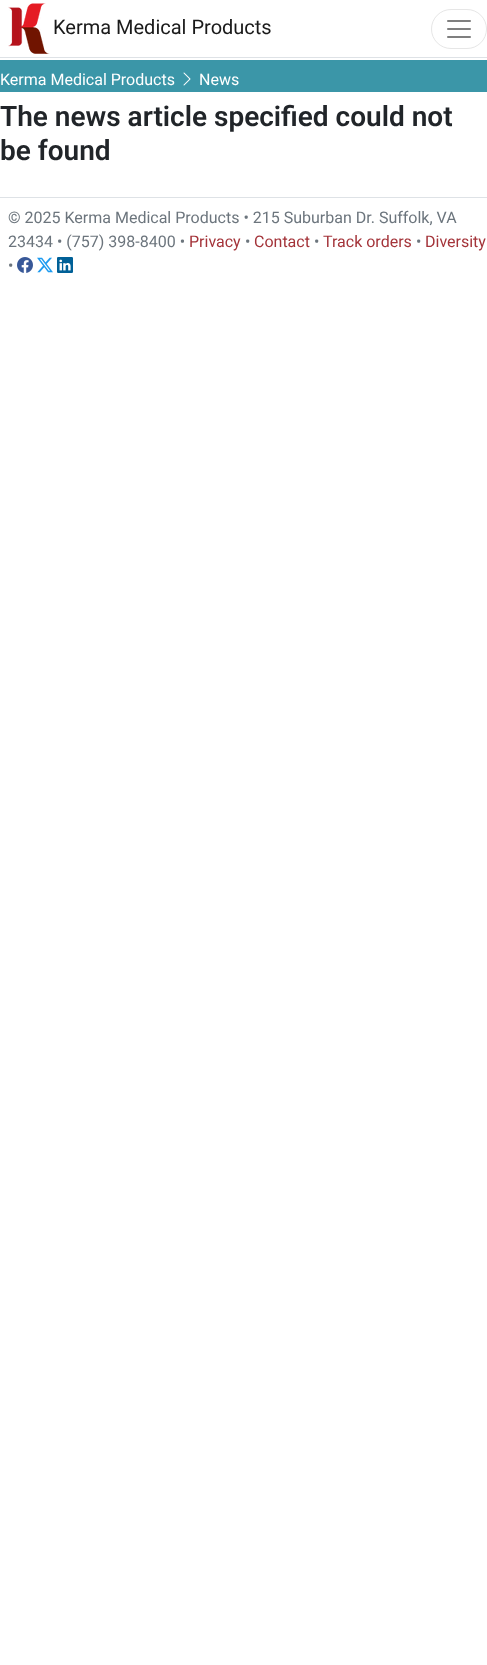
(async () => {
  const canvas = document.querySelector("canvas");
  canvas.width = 487;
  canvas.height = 1665;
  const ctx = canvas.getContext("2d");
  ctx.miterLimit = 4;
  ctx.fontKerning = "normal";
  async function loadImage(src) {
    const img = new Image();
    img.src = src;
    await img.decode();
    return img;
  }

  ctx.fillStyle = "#ffffff";
  ctx.fillRect(0, 0, 487, 1665);
  ctx.fillStyle = "#dee2e6";
  ctx.fillRect(0, 57, 487, 1);
  ctx.drawImage(await loadImage("img/1.png"), 8, 3, 42, 51);
  ctx.beginPath();
  ctx.roundRect(431.5, 9.5, 55, 39, 19.5);
  ctx.strokeStyle = "#e6e6e6";
  ctx.stroke();
  ctx.drawImage(await loadImage("img/2.png"), 447, 20, 24, 18);
  ctx.fillStyle = "#3b96a8";
  ctx.fillRect(0, 60, 487, 32);
  ctx.drawImage(await loadImage("img/3.png"), 183, 72, 8, 14);
  ctx.fillStyle = "#dee2e6";
  ctx.fillRect(0, 197, 487, 1);
  ctx.drawImage(await loadImage("img/4.png"), 17, 257, 16, 16);
  ctx.drawImage(await loadImage("img/5.png"), 37, 257, 16, 16);
  ctx.drawImage(await loadImage("img/6.png"), 57, 257, 16, 16);
  ctx.font = "20px Roboto";
  ctx.fillStyle = "#1a1a1a";
  ctx.fillText("Kerma Medical Products", 53, 34);
  ctx.font = "16px Roboto";
  ctx.fillStyle = "#ffffff";
  ctx.fillText("Kerma Medical Products", 0, 85);
  ctx.fillText("News", 199, 85);
  ctx.font = "600 28px Roboto";
  ctx.fillStyle = "#212529";
  ctx.fillText("The news article specified could not", 0, 126);
  ctx.fillText("be found", 0, 160);
  ctx.font = "16px Roboto";
  ctx.fillStyle = "#6c757d";
  ctx.fillText("© 2025 Kerma Medical Products • 215 Suburban Dr. Suffolk, VA", 8, 223);
  ctx.fillText("23434 • (757) 398-8400 •", 8, 247);
  ctx.fillStyle = "#a4343a";
  ctx.fillText("Privacy", 189, 247);
  ctx.fillStyle = "#6c757d";
  ctx.fillText("•", 245, 247);
  ctx.fillStyle = "#a4343a";
  ctx.fillText("Contact", 254, 247);
  ctx.fillStyle = "#6c757d";
  ctx.fillText("•", 314, 247);
  ctx.fillStyle = "#a4343a";
  ctx.fillText("Track orders", 323, 247);
  ctx.fillStyle = "#6c757d";
  ctx.fillText("•", 416, 247);
  ctx.fillStyle = "#a4343a";
  ctx.fillText("Diversity", 425, 247);
  ctx.fillStyle = "#6c757d";
  ctx.fillText("•", 8, 271);
})();
